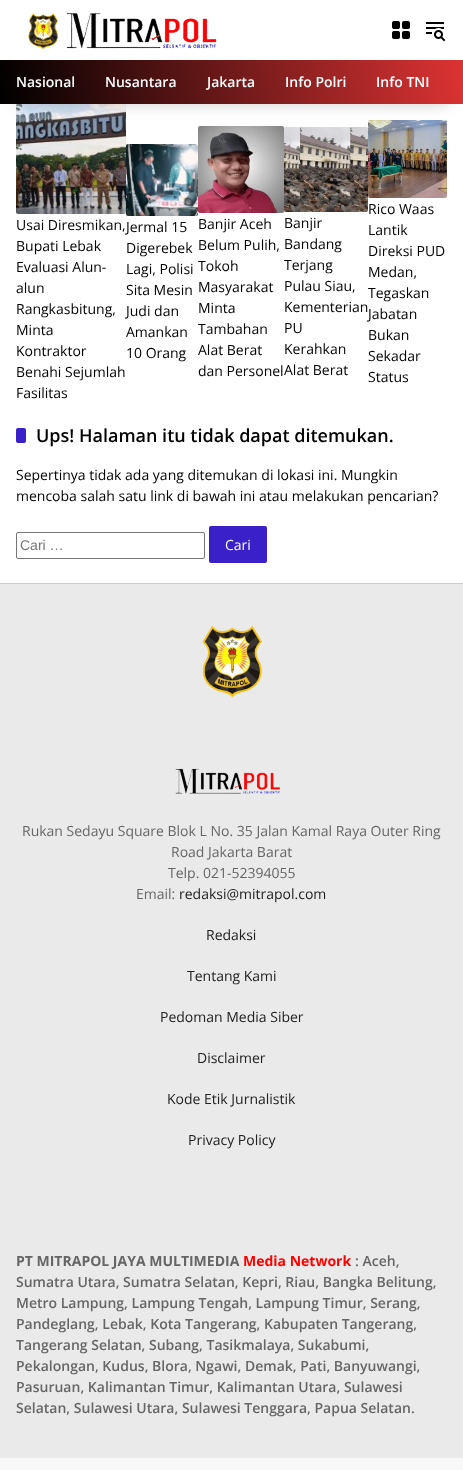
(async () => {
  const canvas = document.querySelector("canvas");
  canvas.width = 463;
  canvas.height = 1470;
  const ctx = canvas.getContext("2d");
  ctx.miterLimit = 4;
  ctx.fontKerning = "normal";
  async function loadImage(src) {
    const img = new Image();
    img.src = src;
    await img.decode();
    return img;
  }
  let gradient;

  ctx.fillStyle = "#f8f8f8";
  ctx.fillRect(0, 0, 463, 1470);
  ctx.fillStyle = "#ffffff";
  ctx.fillRect(0, 0, 463, 583);
  ctx.drawImage(await loadImage("img/1.png"), 28, 12, 189, 37);
  ctx.drawImage(await loadImage("img/2.png"), 392, 21, 18, 18);
  ctx.drawImage(await loadImage("img/3.png"), 426, 22, 20, 20);
  ctx.drawImage(await loadImage("img/4.png"), 16, 104, 110, 110);
  ctx.drawImage(await loadImage("img/6.png"), 198, 126, 86, 87);
  ctx.drawImage(await loadImage("img/7.png"), 284, 127, 84, 85);
  ctx.drawImage(await loadImage("img/8.png"), 368, 120, 79, 78);
  ctx.fillStyle = "rgba(0, 0, 0, 0.2)";
  ctx.filter = "blur(7.5px)";
  ctx.beginPath();
  ctx.rect(15, 90, 433, 14);
  ctx.fill();
  ctx.filter = "none";
  gradient = ctx.createLinearGradient(5.5, 130, 457, 34);
  gradient.addColorStop(0, "#000000");
  gradient.addColorStop(1, "#dd3333");
  ctx.fillStyle = gradient;
  ctx.fillRect(0, 60, 463, 44);
  ctx.drawImage(await loadImage("img/5.png"), 126, 144, 72, 72);
  ctx.fillStyle = "#3920c9";
  ctx.beginPath();
  ctx.roundRect(16, 428, 10, 15, 2);
  ctx.fill();
  ctx.beginPath();
  ctx.roundRect(16.5, 532.5, 188, 26, 1.5);
  ctx.strokeStyle = "#767676";
  ctx.stroke();
  ctx.beginPath();
  ctx.roundRect(209, 526, 58, 37, 2);
  ctx.fill();
  ctx.fillStyle = "#eaeaea";
  ctx.fillRect(0, 584, 463, 874);
  ctx.fillStyle = "#cccccc";
  ctx.fillRect(0, 583, 463, 1);
  ctx.drawImage(await loadImage("img/9.png"), 202, 626, 61, 72);
  ctx.drawImage(await loadImage("img/10.png"), 175, 768, 106, 26);
  ctx.font = "600 14px Open Sans";
  ctx.fillStyle = "#ffffff";
  for (const [text, x, y] of [
    ["Nasional", 16, 87],
    ["Nusantara", 105, 87],
    ["Jakarta", 207, 87],
    ["Info Polri", 285, 87],
    ["Info TNI", 376, 87],
  ]) {
    ctx.fillText(text, x, y);
  }
  ctx.font = "14px Open Sans";
  ctx.fillStyle = "#000000";
  for (const [text, x, y] of [
    ["Usai Diresmikan,", 16, 230],
    ["Bupati Lebak", 16, 251],
    ["Evaluasi Alun-", 16, 272],
    ["alun", 16, 293],
    ["Rangkasbitung,", 16, 314],
    ["Minta", 16, 335],
    ["Kontraktor", 16, 356],
    ["Benahi Sejumlah", 16, 377],
    ["Fasilitas", 16, 398],
    ["Jermal 15", 126, 232],
    ["Digerebek", 126, 253],
    ["Lagi, Polisi", 126, 274],
    ["Sita Mesin", 126, 295],
    ["Judi dan", 126, 316],
    ["Amankan", 126, 337],
    ["10 Orang", 126, 358],
    ["Banjir Aceh", 198, 229],
    ["Belum Pulih,", 198, 250],
    ["Tokoh", 198, 271],
    ["Masyarakat", 198, 292],
    ["Minta", 198, 313],
    ["Tambahan", 198, 334],
    ["Alat Berat", 198, 355],
    ["dan Personel", 198, 376],
    ["Banjir", 284, 228],
    ["Bandang", 284, 249],
    ["Terjang", 284, 270],
    ["Pulau Siau,", 284, 291],
    ["Kementerian", 284, 312],
    ["PU", 284, 333],
    ["Kerahkan", 284, 354],
    ["Alat Berat", 284, 375],
    ["Rico Waas", 368, 214],
    ["Lantik", 368, 235],
    ["Direksi PUD", 368, 256],
    ["Medan,", 368, 277],
    ["Tegaskan", 368, 298],
    ["Jabatan", 368, 319],
    ["Bukan", 368, 340],
    ["Sekadar", 368, 361],
    ["Status", 368, 382],
  ]) {
    ctx.fillText(text, x, y);
  }
  ctx.font = "600 18px Open Sans";
  ctx.fillText("Ups! Halaman itu tidak dapat ditemukan.", 36, 442);
  ctx.font = "14px Open Sans";
  ctx.fillText("Sepertinya tidak ada yang ditemukan di lokasi ini. Mungkin", 16, 480);
  ctx.fillText("mencoba salah satu link di bawah ini atau melakukan pencarian?", 16, 501);
  ctx.font = "14px Liberation Sans";
  ctx.fillStyle = "#757575";
  ctx.fillText("Cari …", 20, 550);
  ctx.font = "14px Open Sans";
  ctx.fillStyle = "#ffffff";
  ctx.fillText("Cari", 225, 550);
  ctx.fillStyle = "#666666";
  for (const [text, x, y] of [
    ["Rukan Sedayu Square Blok L No. 35 Jalan Kamal Raya Outer Ring", 22, 836],
    ["Road Jakarta Barat", 171, 857],
    ["Telp. 021-52394055", 168, 878],
    ["Email:", 136, 899],
  ]) {
    ctx.fillText(text, x, y);
  }
  ctx.fillStyle = "#212121";
  for (const [text, x, y] of [
    ["redaksi@mitrapol.com", 179, 899],
    ["Redaksi", 206, 940],
    ["Tentang Kami", 187, 981],
    ["Pedoman Media Siber", 160, 1022],
    ["Disclaimer", 197, 1063],
    ["Kode Etik Jurnalistik", 167, 1104],
    ["Privacy Policy", 188, 1145],
  ]) {
    ctx.fillText(text, x, y);
  }
  ctx.font = "bold 14px Open Sans";
  ctx.fillStyle = "#666666";
  ctx.fillText("PT MITRAPOL JAYA MULTIMEDIA", 16, 1266);
  ctx.fillStyle = "#ff0000";
  ctx.fillText("Media Network", 243, 1266);
  ctx.font = "600 14px Open Sans";
  ctx.fillStyle = "#666666";
  for (const [text, x, y] of [
    [": Aceh,", 355, 1266],
    ["Sumatra Utara, Sumatra Selatan, Kepri, Riau, Bangka Belitung,", 16, 1287],
    ["Metro Lampung, Lampung Tengah, Lampung Timur, Serang,", 16, 1308],
    ["Pandeglang, Lebak, Kota Tangerang, Kabupaten Tangerang,", 16, 1329],
    ["Tangerang Selatan, Subang, Tasikmalaya, Sukabumi,", 16, 1350],
    ["Pekalongan, Kudus, Blora, Ngawi, Demak, Pati, Banyuwangi,", 16, 1371],
    ["Pasuruan, Kalimantan Timur, Kalimantan Utara, Sulawesi", 16, 1392],
    ["Selatan, Sulawesi Utara, Sulawesi Tenggara, Papua Selatan.", 16, 1413],
  ]) {
    ctx.fillText(text, x, y);
  }
})();
